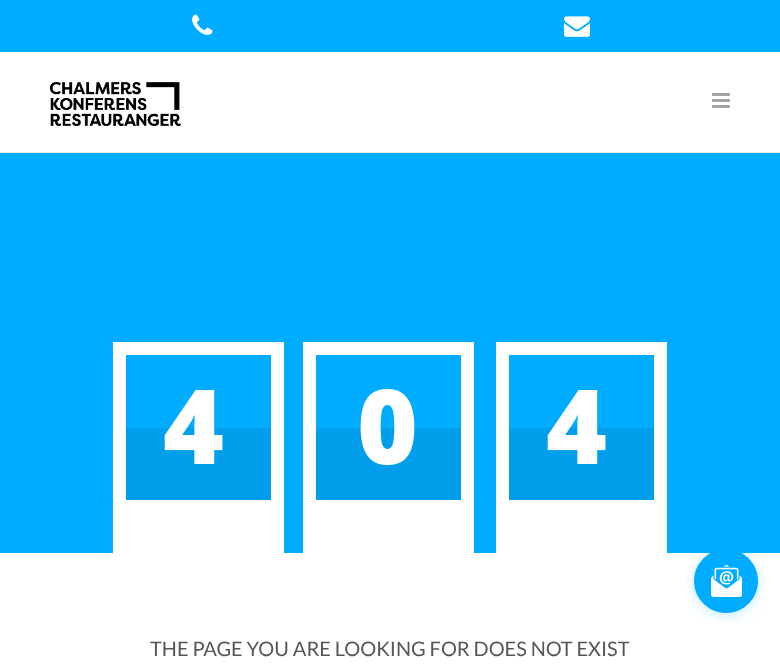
(async () => {
  const canvas = document.querySelector("canvas");
  canvas.width = 780;
  canvas.height = 667;
  const ctx = canvas.getContext("2d");
  ctx.miterLimit = 4;
  ctx.fontKerning = "normal";
  async function loadImage(src) {
    const img = new Image();
    img.src = src;
    await img.decode();
    return img;
  }

  ctx.fillStyle = "#ffffff";
  ctx.fillRect(0, 0, 780, 667);
  ctx.fillStyle = "#ebebeb";
  ctx.fillRect(0, 152, 780, 1);
  ctx.fillStyle = "#00acff";
  ctx.fillRect(0, 0, 780, 52);
  ctx.drawImage(await loadImage("img/1.png"), 192, 14, 21, 21);
  ctx.drawImage(await loadImage("img/2.png"), 564, 16, 26, 21);
  ctx.drawImage(await loadImage("img/3.png"), 50, 82, 131, 44);
  ctx.drawImage(await loadImage("img/4.png"), 712, 93, 18, 15);
  ctx.drawImage(await loadImage("img/5.png"), 687, 553, 79, 69);
  ctx.fillRect(0, 153, 780, 400);
  ctx.drawImage(await loadImage("img/6.png"), 113, 342, 554, 211);
  ctx.font = "20px Lato";
  ctx.fillStyle = "#565656";
  ctx.fillText("THE PAGE YOU ARE LOOKING FOR DOES NOT EXIST", 150, 656);
})();
